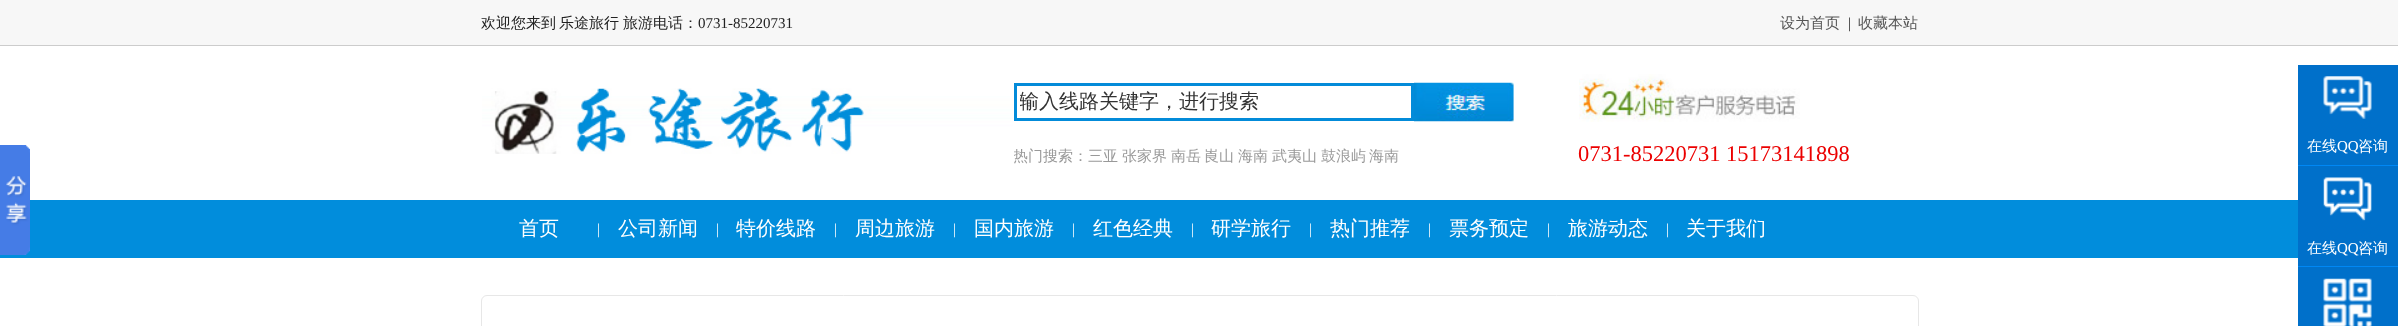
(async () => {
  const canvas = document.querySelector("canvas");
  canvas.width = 2398;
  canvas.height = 326;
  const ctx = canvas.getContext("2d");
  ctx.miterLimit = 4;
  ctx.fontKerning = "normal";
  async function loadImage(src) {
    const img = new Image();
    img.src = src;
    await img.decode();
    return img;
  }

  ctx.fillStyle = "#ffffff";
  ctx.fillRect(0, 0, 2398, 326);
  ctx.fillStyle = "#f7f7f7";
  ctx.fillRect(0, 0, 2398, 45);
  ctx.fillStyle = "#cccccc";
  ctx.fillRect(0, 45, 2398, 1);
  ctx.drawImage(await loadImage("img/1.png"), 482, 88, 531, 66);
  ctx.strokeStyle = "#038bd9";
  ctx.lineWidth = 3;
  ctx.strokeRect(1015.5, 84.5, 397, 35);
  ctx.drawImage(await loadImage("img/2.png"), 1414, 82, 100, 40);
  ctx.drawImage(await loadImage("img/3.png"), 1579, 74, 221, 48);
  ctx.fillStyle = "#018ddc";
  ctx.fillRect(0, 200, 2298, 58);
  ctx.drawImage(await loadImage("img/4.png"), 0, 145, 30, 110);
  ctx.fillStyle = "#0070ca";
  ctx.fillRect(2298, 65, 100, 100);
  ctx.drawImage(await loadImage("img/5.png"), 2323, 76, 49, 43);
  ctx.fillStyle = "#0087f4";
  ctx.fillRect(2298, 165, 100, 1);
  ctx.fillStyle = "#0070ca";
  ctx.fillRect(2298, 166, 100, 160);
  ctx.drawImage(await loadImage("img/6.png"), 2323, 177, 49, 44);
  ctx.fillStyle = "#0087f4";
  ctx.fillRect(2298, 266, 100, 1);
  ctx.drawImage(await loadImage("img/7.png"), 2323, 278, 49, 48);
  ctx.beginPath();
  ctx.roundRect(481.5, 295.5, 1437, 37, 5.5);
  ctx.strokeStyle = "#e7e7e7";
  ctx.lineWidth = 1;
  ctx.stroke();
  ctx.font = "500 15px WenQuanYi Zen Hei";
  ctx.fillStyle = "#222222";
  for (const [text, x, y] of [
    ["欢迎您来到", 481, 28],
    ["乐途旅行", 559, 28],
    ["旅游电话：", 623, 28],
  ]) {
    ctx.fillText(text, x, y);
  }
  ctx.font = "15px Liberation Serif";
  ctx.fillText("0731-85220731", 698, 28);
  ctx.font = "500 15px WenQuanYi Zen Hei";
  ctx.fillStyle = "#555555";
  ctx.fillText("设为首页", 1780, 28);
  ctx.font = "15px Liberation Serif";
  ctx.fillStyle = "#222222";
  ctx.fillText("|", 1848, 28);
  ctx.font = "500 15px WenQuanYi Zen Hei";
  ctx.fillStyle = "#555555";
  ctx.fillText("收藏本站", 1858, 28);
  ctx.save();
  ctx.beginPath();
  ctx.rect(1020, 89, 374, 26);
  ctx.clip();
  ctx.font = "500 20px WenQuanYi Zen Hei";
  ctx.fillStyle = "#333333";
  ctx.fillText("输入线路关键字，进行搜索", 1019, 108);
  ctx.restore();
  ctx.save();
  ctx.beginPath();
  ctx.rect(1014, 143, 525, 27);
  ctx.clip();
  ctx.fillStyle = "#999999";
  ctx.fillText("热门搜索：", 1013, 161);
  ctx.restore();
  ctx.fillStyle = "#999999";
  for (const [text, x, y] of [
    ["三亚", 1088, 161],
    ["张家界", 1122, 161],
    ["南岳", 1171, 161],
    ["崀山", 1204, 161],
    ["海南", 1238, 161],
    ["武夷山", 1272, 161],
    ["鼓浪屿", 1321, 161],
    ["海南", 1369, 161],
  ]) {
    ctx.fillText(text, x, y);
  }
  ctx.font = "22.5px Liberation Serif";
  ctx.fillStyle = "#eb0000";
  ctx.fillText("0731-85220731 15173141898", 1578, 161);
  ctx.font = "500 20px WenQuanYi Zen Hei";
  ctx.fillStyle = "#ffffff";
  ctx.fillText("首页", 519, 235);
  ctx.font = "15px Liberation Serif";
  ctx.fillText("|", 597, 234);
  ctx.font = "500 20px WenQuanYi Zen Hei";
  ctx.fillText("公司新闻", 618, 235);
  ctx.font = "15px Liberation Serif";
  ctx.fillText("|", 716, 234);
  ctx.font = "500 20px WenQuanYi Zen Hei";
  ctx.fillText("特价线路", 736, 235);
  ctx.font = "15px Liberation Serif";
  ctx.fillText("|", 834, 234);
  ctx.font = "500 20px WenQuanYi Zen Hei";
  ctx.fillText("周边旅游", 855, 235);
  ctx.font = "15px Liberation Serif";
  ctx.fillText("|", 953, 234);
  ctx.font = "500 20px WenQuanYi Zen Hei";
  ctx.fillText("国内旅游", 974, 235);
  ctx.font = "15px Liberation Serif";
  ctx.fillText("|", 1072, 234);
  ctx.font = "500 20px WenQuanYi Zen Hei";
  ctx.fillText("红色经典", 1093, 235);
  ctx.font = "15px Liberation Serif";
  ctx.fillText("|", 1191, 234);
  ctx.font = "500 20px WenQuanYi Zen Hei";
  ctx.fillText("研学旅行", 1211, 235);
  ctx.font = "15px Liberation Serif";
  ctx.fillText("|", 1309, 234);
  ctx.font = "500 20px WenQuanYi Zen Hei";
  ctx.fillText("热门推荐", 1330, 235);
  ctx.font = "15px Liberation Serif";
  ctx.fillText("|", 1428, 234);
  ctx.font = "500 20px WenQuanYi Zen Hei";
  ctx.fillText("票务预定", 1449, 235);
  ctx.font = "15px Liberation Serif";
  ctx.fillText("|", 1547, 234);
  ctx.font = "500 20px WenQuanYi Zen Hei";
  ctx.fillText("旅游动态", 1568, 235);
  ctx.font = "15px Liberation Serif";
  ctx.fillText("|", 1666, 234);
  ctx.font = "500 20px WenQuanYi Zen Hei";
  ctx.fillText("关于我们", 1686, 235);
  ctx.font = "500 15px WenQuanYi Zen Hei";
  ctx.fillText("在线", 2307, 151);
  ctx.font = "15px Liberation Serif";
  ctx.fillText("QQ", 2337, 151);
  ctx.font = "500 15px WenQuanYi Zen Hei";
  ctx.fillText("咨询", 2358, 151);
  ctx.fillText("在线", 2307, 253);
  ctx.font = "15px Liberation Serif";
  ctx.fillText("QQ", 2337, 253);
  ctx.font = "500 15px WenQuanYi Zen Hei";
  ctx.fillText("咨询", 2358, 253);
})();
